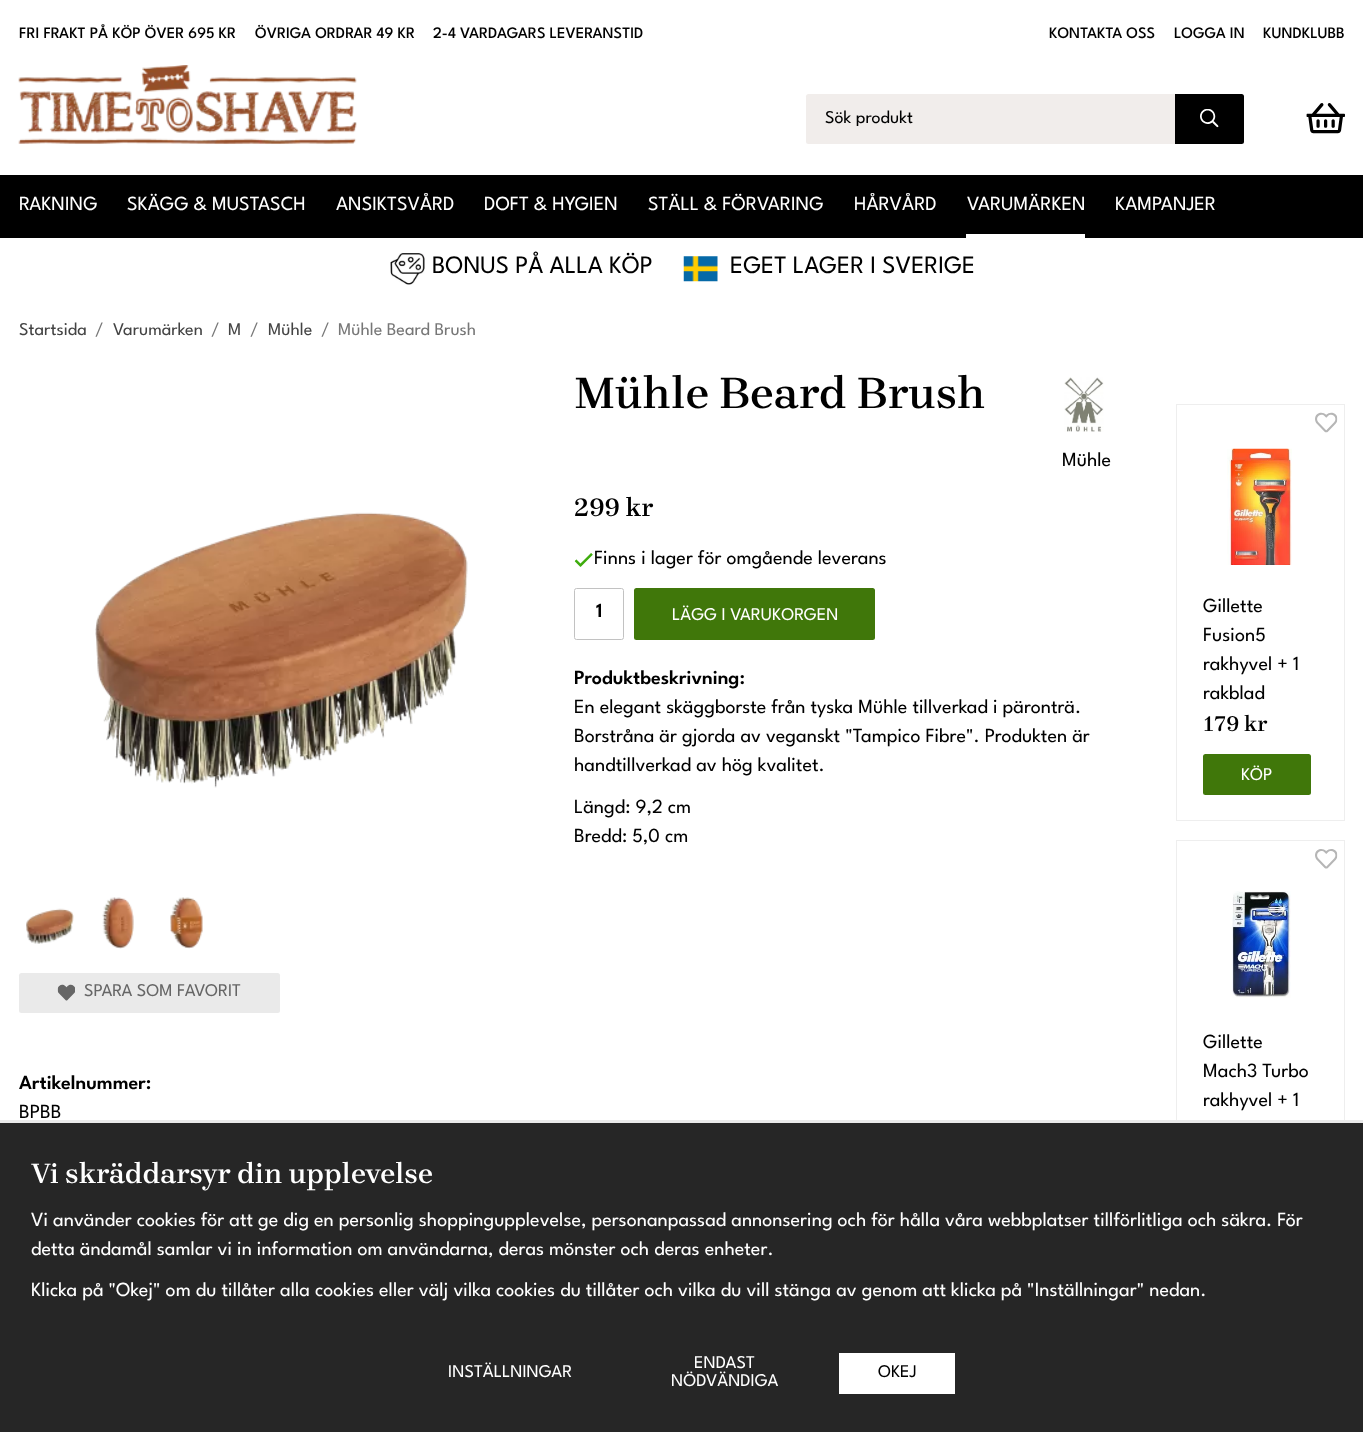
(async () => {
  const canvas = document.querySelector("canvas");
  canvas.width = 1363;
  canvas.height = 1432;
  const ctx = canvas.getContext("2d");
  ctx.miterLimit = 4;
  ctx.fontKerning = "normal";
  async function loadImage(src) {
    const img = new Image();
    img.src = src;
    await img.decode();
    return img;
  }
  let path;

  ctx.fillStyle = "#ffffff";
  ctx.fillRect(0, 0, 1363, 1432);
  ctx.drawImage(await loadImage("img/1.png"), 18, 65, 339, 79);
  ctx.fillStyle = "#f1edeb";
  ctx.beginPath();
  ctx.roundRect(806, 94, 369, 50, [2.5, 0, 0, 2.5]);
  ctx.fill();
  ctx.fillStyle = "#000000";
  ctx.beginPath();
  ctx.roundRect(1175, 94, 69, 50, [0, 2.5, 2.5, 0]);
  ctx.fill();
  ctx.drawImage(await loadImage("img/2.png"), 1200, 109, 19, 19);
  ctx.drawImage(await loadImage("img/3.png"), 1306, 103, 39, 31);
  ctx.fillRect(0, 175, 1363, 63);
  ctx.fillStyle = "#ffffff";
  ctx.fillRect(966, 234, 119, 4);
  ctx.drawImage(await loadImage("img/4.png"), 390, 253, 35, 32);
  ctx.drawImage(await loadImage("img/5.png"), 683, 256, 35, 26);
  ctx.drawImage(await loadImage("img/6.png"), 95, 512, 373, 276);
  ctx.drawImage(await loadImage("img/7.png"), 26, 908, 48, 36);
  ctx.drawImage(await loadImage("img/8.png"), 102, 897, 32, 52);
  ctx.drawImage(await loadImage("img/9.png"), 170, 897, 33, 52);
  ctx.drawImage(await loadImage("img/10.png"), 1064, 377, 40, 55);
  ctx.drawImage(await loadImage("img/11.png"), 574, 553, 19, 14);
  ctx.beginPath();
  ctx.roundRect(574.5, 588.5, 49, 51, 2);
  ctx.strokeStyle = "#c2c2c2";
  ctx.stroke();
  ctx.fillStyle = "#40770a";
  ctx.beginPath();
  ctx.roundRect(634, 588, 241, 52, 2.5);
  ctx.fill();
  ctx.strokeStyle = "#eeeeee";
  ctx.strokeRect(1176.5, 404.5, 168, 416);
  ctx.drawImage(await loadImage("img/12.png"), 1315, 412, 23, 21);
  ctx.drawImage(await loadImage("img/13.png"), 1227, 448, 65, 117);
  ctx.beginPath();
  ctx.roundRect(1203, 754, 108, 41, 2.5);
  ctx.fill();
  ctx.strokeRect(1176.5, 840.5, 168, 417);
  ctx.drawImage(await loadImage("img/14.png"), 1315, 849, 23, 20);
  ctx.drawImage(await loadImage("img/15.png"), 1232, 891, 59, 107);
  ctx.fillStyle = "#eaeaea";
  ctx.beginPath();
  ctx.roundRect(19, 973, 261, 40, 2.5);
  ctx.fill();
  ctx.drawImage(await loadImage("img/16.png"), 57, 984, 18, 17);
  for (const [x, y, w, h, color] of [
    [0, 1123, 1363, 309, "#262626"],
    [0, 1120, 1363, 3, "#e9e9e9"],
    [839, 1353, 116, 41, "#ffffff"],
  ]) {
    ctx.fillStyle = color;
    ctx.fillRect(x, y, w, h);
  }
  ctx.font = "500 16px League Spartan";
  ctx.fillStyle = "#000000";
  for (const [text, x, y] of [
    ["FRI FRAKT PÅ KÖP ÖVER 695 KR", 19, 38],
    ["ÖVRIGA ORDRAR 49 KR", 255, 38],
    ["2-4 VARDAGARS LEVERANSTID", 433, 38],
    ["KONTAKTA OSS", 1049, 38],
    ["LOGGA IN", 1174, 38],
    ["KUNDKLUBB", 1263, 38],
  ]) {
    ctx.fillText(text, x, y);
  }
  ctx.save();
  ctx.beginPath();
  ctx.rect(825, 110, 333, 16);
  ctx.clip();
  ctx.font = "18px League Spartan";
  ctx.fillText("Sök produkt", 825, 123);
  ctx.restore();
  ctx.font = "20px League Spartan";
  ctx.fillStyle = "#ffffff";
  for (const [text, x, y] of [
    ["RAKNING", 19, 210],
    ["SKÄGG & MUSTASCH", 127, 210],
    ["ANSIKTSVÅRD", 336, 210],
    ["DOFT & HYGIEN", 484, 210],
    ["STÄLL & FÖRVARING", 648, 210],
    ["HÅRVÅRD", 854, 210],
    ["VARUMÄRKEN", 967, 210],
    ["KAMPANJER", 1115, 210],
  ]) {
    ctx.fillText(text, x, y);
  }
  ctx.font = "25px League Spartan";
  ctx.fillStyle = "#000000";
  ctx.fillText("BONUS PÅ ALLA KÖP", 432, 273);
  ctx.fillText("EGET LAGER I SVERIGE", 730, 273);
  ctx.font = "18px League Spartan";
  ctx.fillStyle = "#444444";
  ctx.fillText("Startsida", 19, 335);
  ctx.fillStyle = "#777777";
  ctx.fillText("/", 95, 335);
  ctx.fillStyle = "#444444";
  ctx.fillText("Varumärken", 113, 335);
  ctx.fillStyle = "#777777";
  ctx.fillText("/", 211, 335);
  ctx.fillStyle = "#444444";
  ctx.fillText("M", 228, 335);
  ctx.fillStyle = "#777777";
  ctx.fillText("/", 250, 335);
  ctx.fillStyle = "#444444";
  ctx.fillText("Mühle", 268, 335);
  ctx.fillStyle = "#777777";
  ctx.fillText("/", 321, 335);
  ctx.fillText("Mühle Beard Brush", 338, 335);
  ctx.font = "600 45px 'Brygada 1918'";
  ctx.fillStyle = "#000000";
  ctx.fillText("Mühle Beard Brush", 574, 408);
  ctx.font = "20px League Spartan";
  ctx.fillText("Mühle", 1062, 466);
  ctx.font = "600 26px 'Brygada 1918'";
  ctx.fillText("299 kr", 574, 516);
  ctx.font = "20px League Spartan";
  ctx.fillText("Finns i lager för omgående leverans", 594, 564);
  ctx.font = "600 20px League Spartan";
  ctx.fillText("1", 596, 617);
  ctx.font = "18px League Spartan";
  ctx.fillStyle = "#ffffff";
  ctx.fillText("LÄGG I VARUKORGEN", 672, 620);
  ctx.save();
  ctx.beginPath();
  ctx.rect(746, 605, 9, 18);
  ctx.clip();
  path = new Path2D("M749.5 608.5C756.5 601.5 767.5 612 760.5 619");
  ctx.strokeStyle = "#40770a";
  ctx.lineWidth = 2.5;
  ctx.stroke(path);
  ctx.restore();
  ctx.font = "600 20px League Spartan";
  ctx.fillStyle = "#000000";
  ctx.fillText("Produktbeskrivning:", 574, 684);
  ctx.font = "20px League Spartan";
  for (const [text, x, y] of [
    ["En elegant skäggborste från tyska Mühle tillverkad i päronträ.", 574, 713],
    ["Borstråna är gjorda av veganskt \"Tampico Fibre\". Produkten är", 574, 742],
    ["handtillverkad av hög kvalitet.", 574, 771],
    ["Längd: 9,2 cm", 574, 813],
    ["Bredd: 5,0 cm", 574, 842],
    ["Gillette", 1203, 612],
    ["Fusion5", 1203, 641],
    ["rakhyvel + 1", 1203, 670],
    ["rakblad", 1203, 699],
  ]) {
    ctx.fillText(text, x, y);
  }
  ctx.font = "600 22px 'Brygada 1918'";
  ctx.fillText("179 kr", 1203, 731);
  ctx.font = "18px League Spartan";
  ctx.fillStyle = "#ffffff";
  ctx.fillText("KÖP", 1241, 780);
  ctx.font = "20px League Spartan";
  ctx.fillStyle = "#000000";
  for (const [text, x, y] of [
    ["Gillette", 1203, 1048],
    ["Mach3 Turbo", 1203, 1077],
    ["rakhyvel + 1", 1203, 1106],
  ]) {
    ctx.fillText(text, x, y);
  }
  ctx.font = "18px League Spartan";
  ctx.fillStyle = "#666666";
  ctx.fillText("SPARA SOM FAVORIT", 84, 996);
  ctx.font = "600 20px League Spartan";
  ctx.fillStyle = "#000000";
  ctx.fillText("Artikelnummer:", 19, 1089);
  ctx.font = "20px League Spartan";
  ctx.fillText("BPBB", 19, 1118);
  ctx.font = "600 28.75px 'Brygada 1918'";
  ctx.fillStyle = "#ffffff";
  ctx.fillText("Vi skräddarsyr din upplevelse", 31, 1183);
  ctx.font = "20px League Spartan";
  for (const [text, x, y] of [
    ["Vi använder cookies för att ge dig en personlig shoppingupplevelse, personanpassad annonsering och för hålla våra webbplatser tillförlitliga och säkra. För", 31, 1226],
    ["detta ändamål samlar vi in information om användarna, deras mönster och deras enheter.", 31, 1255],
    ["Klicka på \"Okej\" om du tillåter alla cookies eller välj vilka cookies du tillåter och vilka du vill stänga av genom att klicka på \"Inställningar\" nedan.", 31, 1296],
  ]) {
    ctx.fillText(text, x, y);
  }
  ctx.font = "18px League Spartan";
  for (const [text, x, y] of [
    ["INSTÄLLNINGAR", 448, 1377],
    ["ENDAST", 694, 1368],
    ["NÖDVÄNDIGA", 671, 1386],
  ]) {
    ctx.fillText(text, x, y);
  }
  ctx.fillStyle = "#000000";
  ctx.fillText("OKEJ", 878, 1377);
})();
